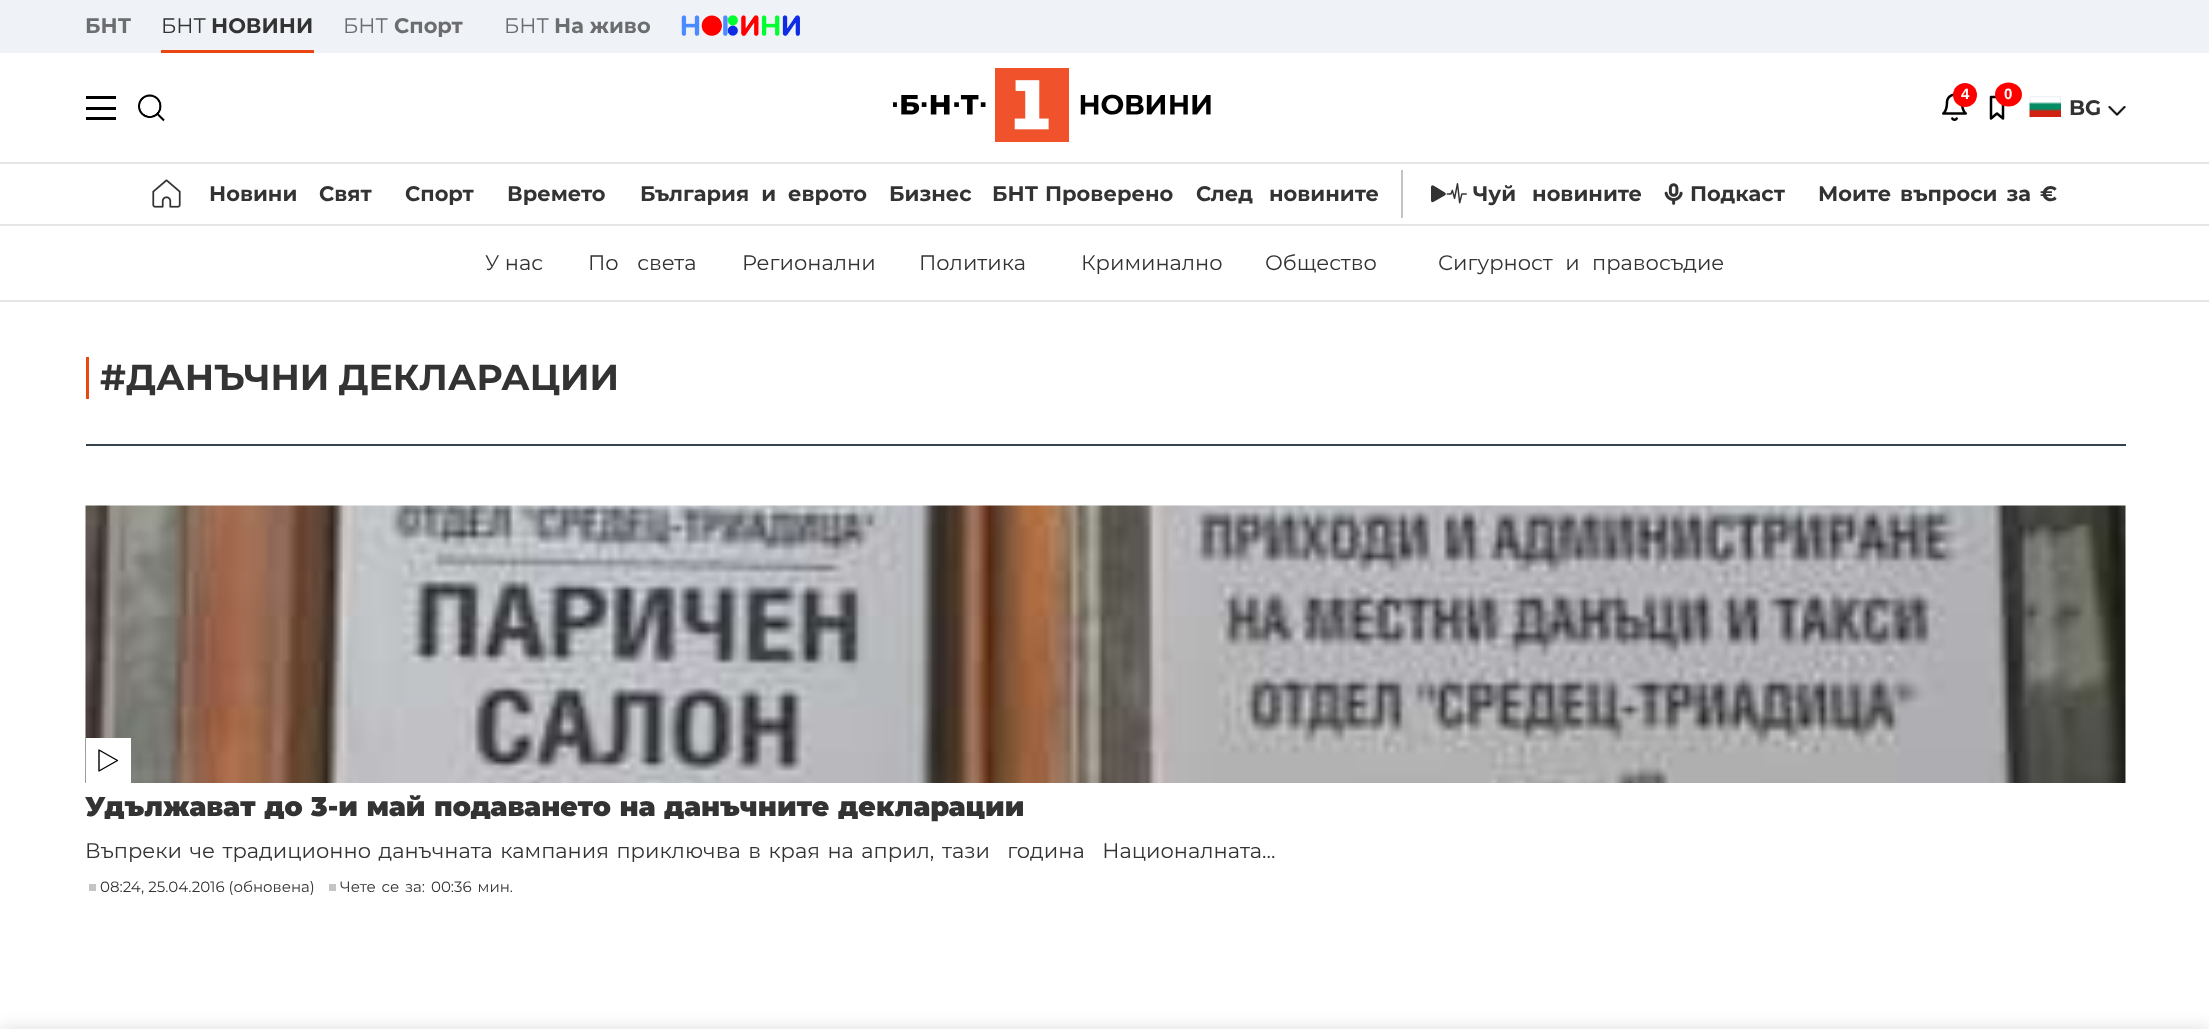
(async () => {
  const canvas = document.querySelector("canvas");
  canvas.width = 2209;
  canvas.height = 1029;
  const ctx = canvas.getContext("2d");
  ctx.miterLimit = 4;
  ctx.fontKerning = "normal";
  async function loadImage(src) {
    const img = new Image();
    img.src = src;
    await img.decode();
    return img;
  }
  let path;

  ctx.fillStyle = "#ffffff";
  ctx.fillRect(0, 0, 2209, 1029);
  ctx.fillStyle = "#eff3f8";
  ctx.fillRect(0, 0, 2209, 53);
  ctx.fillStyle = "#e94612";
  ctx.fillRect(161, 50, 153, 3);
  ctx.drawImage(await loadImage("img/1.png"), 681, 15, 119, 21);
  for (const [x, y, w, h, color] of [
    [86, 96, 30, 3, "#000000"],
    [86, 107, 30, 3, "#000000"],
    [86, 117, 30, 3, "#000000"],
  ]) {
    ctx.fillStyle = color;
    ctx.fillRect(x, y, w, h);
  }
  ctx.drawImage(await loadImage("img/2.png"), 138, 94, 27, 28);
  ctx.drawImage(await loadImage("img/3.png"), 893, 68, 318, 74);
  ctx.drawImage(await loadImage("img/4.png"), 1942, 93, 25, 28);
  ctx.fillStyle = "#ff0000";
  ctx.beginPath();
  ctx.arc(1965, 95, 12, 0, Math.PI * 2);
  ctx.fill();
  path = new Path2D("M1991 97V118.5L1997 113.5L2003 118.5V97Z");
  ctx.strokeStyle = "#000000";
  ctx.lineWidth = 2.5;
  ctx.lineCap = "round";
  ctx.lineJoin = "round";
  ctx.stroke(path);
  ctx.beginPath();
  ctx.ellipse(2008.5, 94.5, 13.5, 12, 0, 0, Math.PI * 2);
  ctx.fill();
  ctx.drawImage(await loadImage("img/5.png"), 2029, 96, 32, 21);
  ctx.drawImage(await loadImage("img/6.png"), 2108, 106, 18, 10);
  ctx.fillStyle = "#e5e5e5";
  ctx.fillRect(0, 162, 2209, 2);
  ctx.fillRect(0, 224, 2209, 2);
  ctx.drawImage(await loadImage("img/7.png"), 152, 179, 29, 29);
  ctx.fillStyle = "#c4c4c4";
  ctx.fillRect(1401, 170, 2, 48);
  ctx.drawImage(await loadImage("img/8.png"), 1431, 183, 36, 21);
  ctx.drawImage(await loadImage("img/9.png"), 1664, 183, 19, 22);
  for (const [x, y, w, h, color] of [
    [0, 300, 2209, 2, "#e5e5e5"],
    [86, 357, 3, 42, "#e94612"],
    [86, 444, 2040, 2, "#38444d"],
  ]) {
    ctx.fillStyle = color;
    ctx.fillRect(x, y, w, h);
  }
  ctx.drawImage(await loadImage("img/10.png"), 85, 505, 2041, 278);
  ctx.fillStyle = "#ffffff";
  ctx.fillRect(86, 738, 45, 45);
  path = new Path2D("M99 771V750L117.5 760.5Z");
  ctx.lineWidth = 1.4;
  ctx.lineCap = "butt";
  ctx.stroke(path);
  ctx.fillStyle = "#c4c4c4";
  ctx.fillRect(89, 884, 7, 7);
  ctx.fillRect(329, 884, 7, 7);
  ctx.fillStyle = "rgba(0, 0, 0, 0.1)";
  ctx.filter = "blur(7.5px)";
  ctx.beginPath();
  ctx.roundRect(0, 1026, 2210, 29, 3);
  ctx.fill();
  ctx.filter = "none";
  ctx.font = "bold 21px Montserrat";
  ctx.fillStyle = "#6b6d6e";
  ctx.fillText("БНТ", 85, 33);
  ctx.font = "21px Montserrat";
  ctx.fillStyle = "#333333";
  ctx.fillText("БНТ", 161, 33);
  ctx.font = "bold 21px Montserrat";
  ctx.fillText("НОВИНИ", 211, 33);
  ctx.font = "21px Montserrat";
  ctx.fillStyle = "#6b6d6e";
  ctx.fillText("БНТ", 343, 33);
  ctx.font = "bold 21px Montserrat";
  ctx.fillText("Спорт", 394, 33);
  ctx.font = "21px Montserrat";
  ctx.fillText("БНТ", 504, 33);
  ctx.font = "bold 21px Montserrat";
  ctx.fillText("На живо", 554, 33);
  ctx.font = "bold 15px Liberation Sans";
  ctx.fillStyle = "#ffffff";
  ctx.fillText("4", 1961, 99);
  ctx.fillText("0", 2004, 99);
  ctx.font = "bold 21px Montserrat";
  ctx.fillStyle = "#333333";
  for (const [text, x, y] of [
    ["BG", 2069, 115],
    ["Новини", 209, 201],
    ["Свят", 319, 201],
    ["Спорт", 405, 201],
    ["Времето", 507, 201],
  ]) {
    ctx.fillText(text, x, y);
  }
  ctx.wordSpacing = "6px";
  ctx.fillText("България и еврото", 640, 201);
  ctx.wordSpacing = "0px";
  ctx.fillText("Бизнес", 889, 201);
  ctx.wordSpacing = "1px";
  ctx.fillText("БНТ Проверено", 992, 201);
  ctx.wordSpacing = "10px";
  ctx.fillText("След новините", 1196, 201);
  ctx.fillText("Чуй новините", 1473, 201);
  ctx.wordSpacing = "0px";
  ctx.fillText("Подкаст", 1690, 201);
  ctx.wordSpacing = "3px";
  ctx.fillText("Моите въпроси за €", 1818, 201);
  ctx.wordSpacing = "0px";
  ctx.font = "21px Montserrat";
  ctx.fillText("У нас", 485, 270);
  ctx.wordSpacing = "13px";
  ctx.fillText("По света", 588, 270);
  ctx.wordSpacing = "0px";
  for (const [text, x, y] of [
    ["Регионални", 742, 270],
    ["Политика", 919, 270],
    ["Криминално", 1081, 270],
    ["Общество", 1265, 270],
  ]) {
    ctx.fillText(text, x, y);
  }
  ctx.wordSpacing = "7px";
  ctx.fillText("Сигурност и правосъдие", 1438, 270);
  ctx.wordSpacing = "-1px";
  ctx.font = "bold 36px Montserrat";
  ctx.fillText("#ДАНЪЧНИ ДЕКЛАРАЦИИ", 100, 390);
  ctx.wordSpacing = "0.5px";
  ctx.font = "900 27px Montserrat";
  ctx.fillText("Удължават до 3-и май подаването на данъчните декларации", 85, 816);
  ctx.wordSpacing = "2px";
  ctx.font = "21px Montserrat";
  ctx.fillText("Въпреки че традиционно данъчната кампания приключва в края на април,", 85, 858);
  ctx.wordSpacing = "12px";
  ctx.fillText("тази година Националната...", 942, 858);
  ctx.wordSpacing = "0px";
  ctx.font = "15px Montserrat";
  ctx.fillText("08:24, 25.04.2016 (обновена)", 100, 892);
  ctx.wordSpacing = "2px";
  ctx.fillText("Чете се за: 00:36 мин.", 340, 892);
})();
